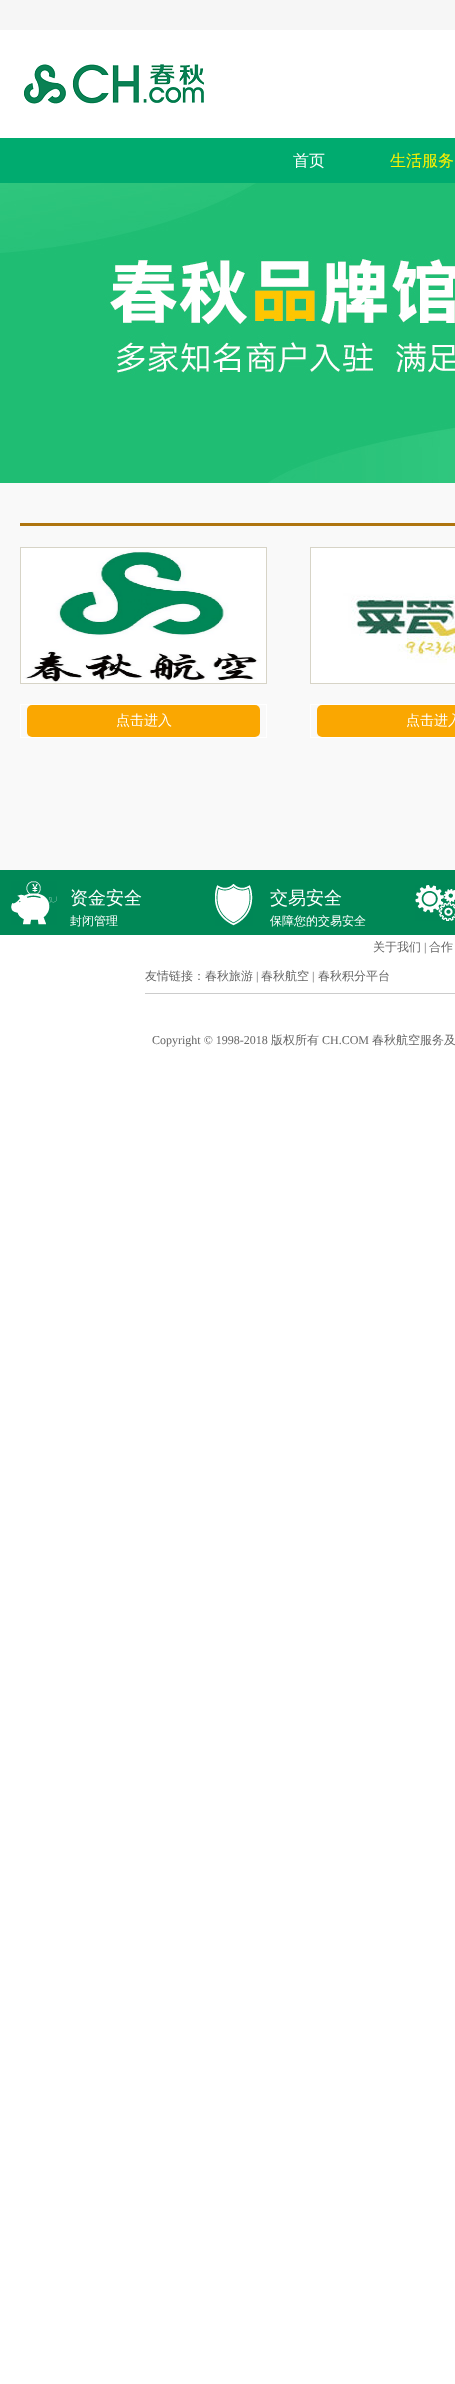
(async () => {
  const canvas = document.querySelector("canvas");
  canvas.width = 455;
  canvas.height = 2384;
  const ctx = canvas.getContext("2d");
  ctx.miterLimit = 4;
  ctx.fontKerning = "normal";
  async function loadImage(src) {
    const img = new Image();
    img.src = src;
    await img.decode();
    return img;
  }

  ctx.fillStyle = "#ffffff";
  ctx.fillRect(0, 0, 455, 2384);
  ctx.fillStyle = "#f6f6f6";
  ctx.fillRect(0, 0, 455, 30);
  ctx.drawImage(await loadImage("img/1.png"), 24, 64, 180, 40);
  ctx.fillStyle = "#00ab6f";
  ctx.fillRect(0, 138, 455, 45);
  ctx.drawImage(await loadImage("img/2.png"), 0, 183, 455, 300);
  ctx.fillStyle = "#f9f9f9";
  ctx.fillRect(0, 483, 455, 387);
  ctx.fillStyle = "#af750f";
  ctx.fillRect(20, 523, 435, 3);
  ctx.strokeStyle = "#d7d4c7";
  ctx.strokeRect(20.5, 547.5, 246, 136);
  ctx.drawImage(await loadImage("img/3.png"), 21, 548, 245, 135);
  ctx.strokeStyle = "#ffffff";
  ctx.strokeRect(20.5, 704.5, 246, 33);
  ctx.fillStyle = "#faa701";
  ctx.beginPath();
  ctx.roundRect(27, 705, 233, 32, 5);
  ctx.fill();
  ctx.strokeStyle = "#d7d4c7";
  ctx.strokeRect(310.5, 547.5, 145, 136);
  ctx.drawImage(await loadImage("img/4.png"), 311, 548, 144, 135);
  ctx.strokeStyle = "#ffffff";
  ctx.strokeRect(310.5, 704.5, 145, 33);
  ctx.beginPath();
  ctx.roundRect(317, 705, 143, 32, 5);
  ctx.fill();
  ctx.fillStyle = "#008856";
  ctx.fillRect(0, 870, 455, 65);
  ctx.drawImage(await loadImage("img/5.png"), 11, 881, 46, 44);
  ctx.drawImage(await loadImage("img/6.png"), 215, 884, 38, 42);
  ctx.drawImage(await loadImage("img/7.png"), 415, 885, 40, 36);
  ctx.fillStyle = "#cccccc";
  ctx.fillRect(145, 993, 310, 1);
  ctx.font = "500 16px WenQuanYi Zen Hei";
  ctx.fillStyle = "#ffffff";
  ctx.fillText("首页", 293, 166);
  ctx.fillStyle = "#fff100";
  ctx.fillText("生活服务", 390, 166);
  ctx.font = "500 14px WenQuanYi Zen Hei";
  ctx.fillStyle = "#ffffff";
  ctx.fillText("点击进入", 116, 725);
  ctx.fillText("点击进入", 406, 725);
  ctx.font = "500 18px WenQuanYi Zen Hei";
  ctx.fillText("资金安全", 70, 904);
  ctx.font = "500 12px WenQuanYi Zen Hei";
  ctx.fillText("封闭管理", 70, 925);
  ctx.font = "500 18px WenQuanYi Zen Hei";
  ctx.fillText("交易安全", 270, 904);
  ctx.font = "500 12px WenQuanYi Zen Hei";
  ctx.fillText("保障您的交易安全", 270, 925);
  ctx.fillStyle = "#666666";
  ctx.fillText("关于我们", 373, 951);
  ctx.font = "12px Liberation Serif";
  ctx.fillText("|", 424, 951);
  ctx.font = "500 12px WenQuanYi Zen Hei";
  ctx.fillText("合作", 429, 951);
  ctx.fillText("友情链接：春秋旅游", 145, 980);
  ctx.font = "12px Liberation Serif";
  ctx.fillText("|", 256, 980);
  ctx.font = "500 12px WenQuanYi Zen Hei";
  ctx.fillText("春秋航空", 261, 980);
  ctx.font = "12px Liberation Serif";
  ctx.fillText("|", 312, 980);
  ctx.font = "500 12px WenQuanYi Zen Hei";
  ctx.fillText("春秋积分平台", 318, 980);
  ctx.font = "12px Liberation Serif";
  ctx.fillText("Copyright © 1998-2018", 152, 1044);
  ctx.font = "500 12px WenQuanYi Zen Hei";
  ctx.fillText("版权所有", 271, 1044);
  ctx.font = "12px Liberation Serif";
  ctx.fillText("CH.COM", 322, 1044);
  ctx.font = "500 12px WenQuanYi Zen Hei";
  ctx.fillText("春秋航空服务及", 372, 1044);
})();
